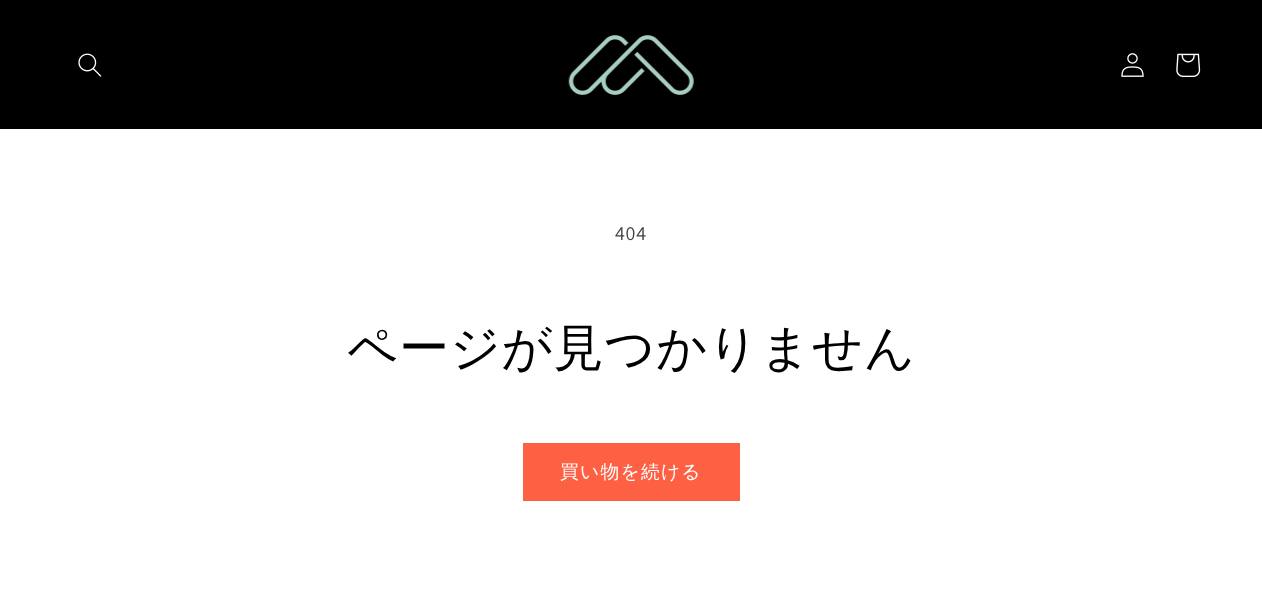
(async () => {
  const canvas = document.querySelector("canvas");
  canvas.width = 1262;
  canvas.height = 589;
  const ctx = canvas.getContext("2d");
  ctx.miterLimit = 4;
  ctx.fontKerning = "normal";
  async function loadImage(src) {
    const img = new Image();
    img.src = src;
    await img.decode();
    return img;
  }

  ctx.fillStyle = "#ffffff";
  ctx.fillRect(0, 0, 1262, 589);
  ctx.fillStyle = "#000000";
  ctx.fillRect(0, 0, 1262, 129);
  ctx.drawImage(await loadImage("img/1.png"), 78, 53, 24, 24);
  ctx.drawImage(await loadImage("img/2.png"), 568, 35, 126, 60);
  ctx.drawImage(await loadImage("img/3.png"), 1121, 53, 23, 24);
  ctx.drawImage(await loadImage("img/4.png"), 1176, 53, 25, 24);
  ctx.fillStyle = "#fd6043";
  ctx.fillRect(523, 443, 217, 58);
  ctx.letterSpacing = "0.75px";
  ctx.font = "20px Assistant";
  ctx.fillStyle = "#404040";
  ctx.fillText("404", 615, 240);
  ctx.font = "500 50px WenQuanYi Zen Hei";
  ctx.fillStyle = "#000000";
  ctx.fillText("ページが見つかりません", 347, 365);
  ctx.letterSpacing = "1.25px";
  ctx.font = "500 18.75px WenQuanYi Zen Hei";
  ctx.fillStyle = "#ffffff";
  ctx.fillText("買い物を続ける", 560, 478);
})();
